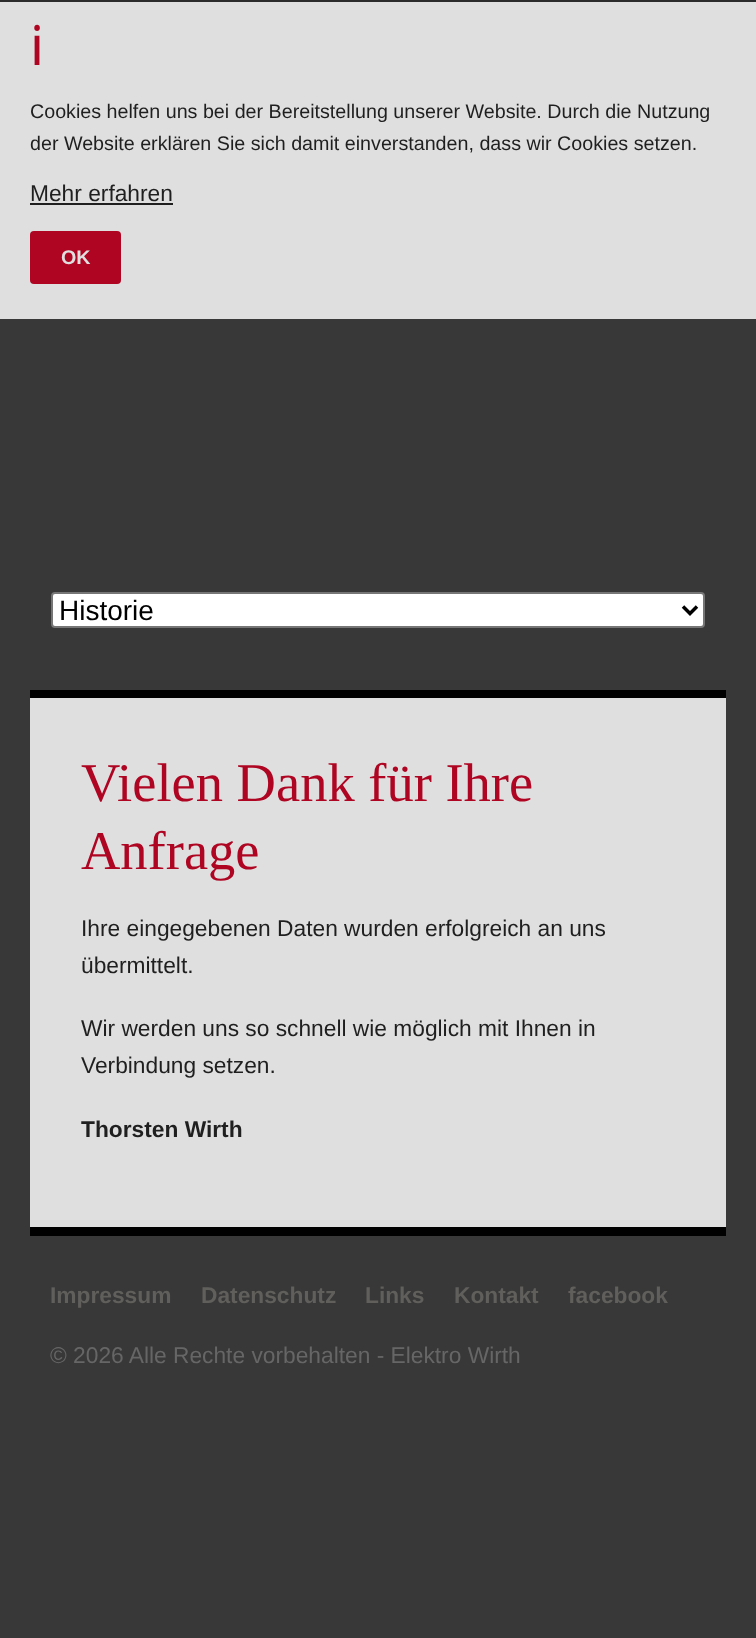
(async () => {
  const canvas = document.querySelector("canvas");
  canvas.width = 756;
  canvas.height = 1638;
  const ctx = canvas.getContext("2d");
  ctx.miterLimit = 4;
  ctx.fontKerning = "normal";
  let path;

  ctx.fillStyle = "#383838";
  ctx.fillRect(0, 0, 756, 1638);
  for (const [x, y, w, h, color] of [
    [0, 2, 756, 317, "#dfdfdf"],
    [0, 0, 756, 2, "#2b2b2b"],
    [30, 203, 143, 2, "#1f1f1f"],
  ]) {
    ctx.fillStyle = color;
    ctx.fillRect(x, y, w, h);
  }
  ctx.fillStyle = "#af0522";
  ctx.beginPath();
  ctx.roundRect(30, 231, 91, 53, 4);
  ctx.fill();
  ctx.fillStyle = "#ffffff";
  ctx.beginPath();
  ctx.roundRect(52, 593, 652, 34, 3);
  ctx.fill();
  ctx.strokeStyle = "#767676";
  ctx.lineWidth = 2;
  ctx.stroke();
  path = new Path2D("M683 606.5L690 613.5L697 606.5");
  ctx.strokeStyle = "#000000";
  ctx.lineWidth = 3.5;
  ctx.stroke(path);
  for (const [x, y, w, h, color] of [
    [30, 698, 696, 529, "#dfdfdf"],
    [30, 690, 696, 8, "#000000"],
    [30, 1227, 696, 9, "#000000"],
  ]) {
    ctx.fillStyle = color;
    ctx.fillRect(x, y, w, h);
  }
  ctx.font = "54.5px Noto Sans";
  ctx.fillStyle = "#af0522";
  ctx.fillText("ℹ", 30, 65);
  ctx.font = "19.7px Liberation Sans";
  ctx.fillStyle = "#1f1f1f";
  ctx.fillText("Cookies helfen uns bei der Bereitstellung unserer Website. Durch die Nutzung", 30, 118);
  ctx.fillText("der Website erklären Sie sich damit einverstanden, dass wir Cookies setzen.", 30, 150);
  ctx.font = "22.75px Liberation Sans";
  ctx.fillText("Mehr erfahren", 30, 201);
  ctx.font = "bold 19.7px Liberation Sans";
  ctx.fillStyle = "#dfdfdf";
  ctx.fillText("OK", 61, 264);
  ctx.font = "28px Liberation Sans";
  ctx.fillStyle = "#000000";
  ctx.fillText("Historie", 59, 620);
  ctx.font = "54.5px Liberation Serif";
  ctx.fillStyle = "#af0522";
  ctx.fillText("Vielen Dank für Ihre", 81, 801);
  ctx.fillText("Anfrage", 81, 869);
  ctx.font = "22.75px Liberation Sans";
  ctx.fillStyle = "#1f1f1f";
  for (const [text, x, y] of [
    ["Ihre eingegebenen Daten wurden erfolgreich an uns", 81, 936],
    ["übermittelt.", 81, 973],
    ["Wir werden uns so schnell wie möglich mit Ihnen in", 81, 1036],
    ["Verbindung setzen.", 81, 1073],
  ]) {
    ctx.fillText(text, x, y);
  }
  ctx.font = "bold 22.75px Liberation Sans";
  ctx.fillText("Thorsten Wirth", 81, 1137);
  ctx.fillStyle = "#605f5c";
  for (const [text, x, y] of [
    ["Impressum", 50, 1303],
    ["Datenschutz", 201, 1303],
    ["Links", 365, 1303],
    ["Kontakt", 454, 1303],
    ["facebook", 568, 1303],
  ]) {
    ctx.fillText(text, x, y);
  }
  ctx.font = "22.75px Liberation Sans";
  ctx.fillStyle = "#666666";
  ctx.fillText("© 2026 Alle Rechte vorbehalten - Elektro Wirth", 50, 1363);
})();
